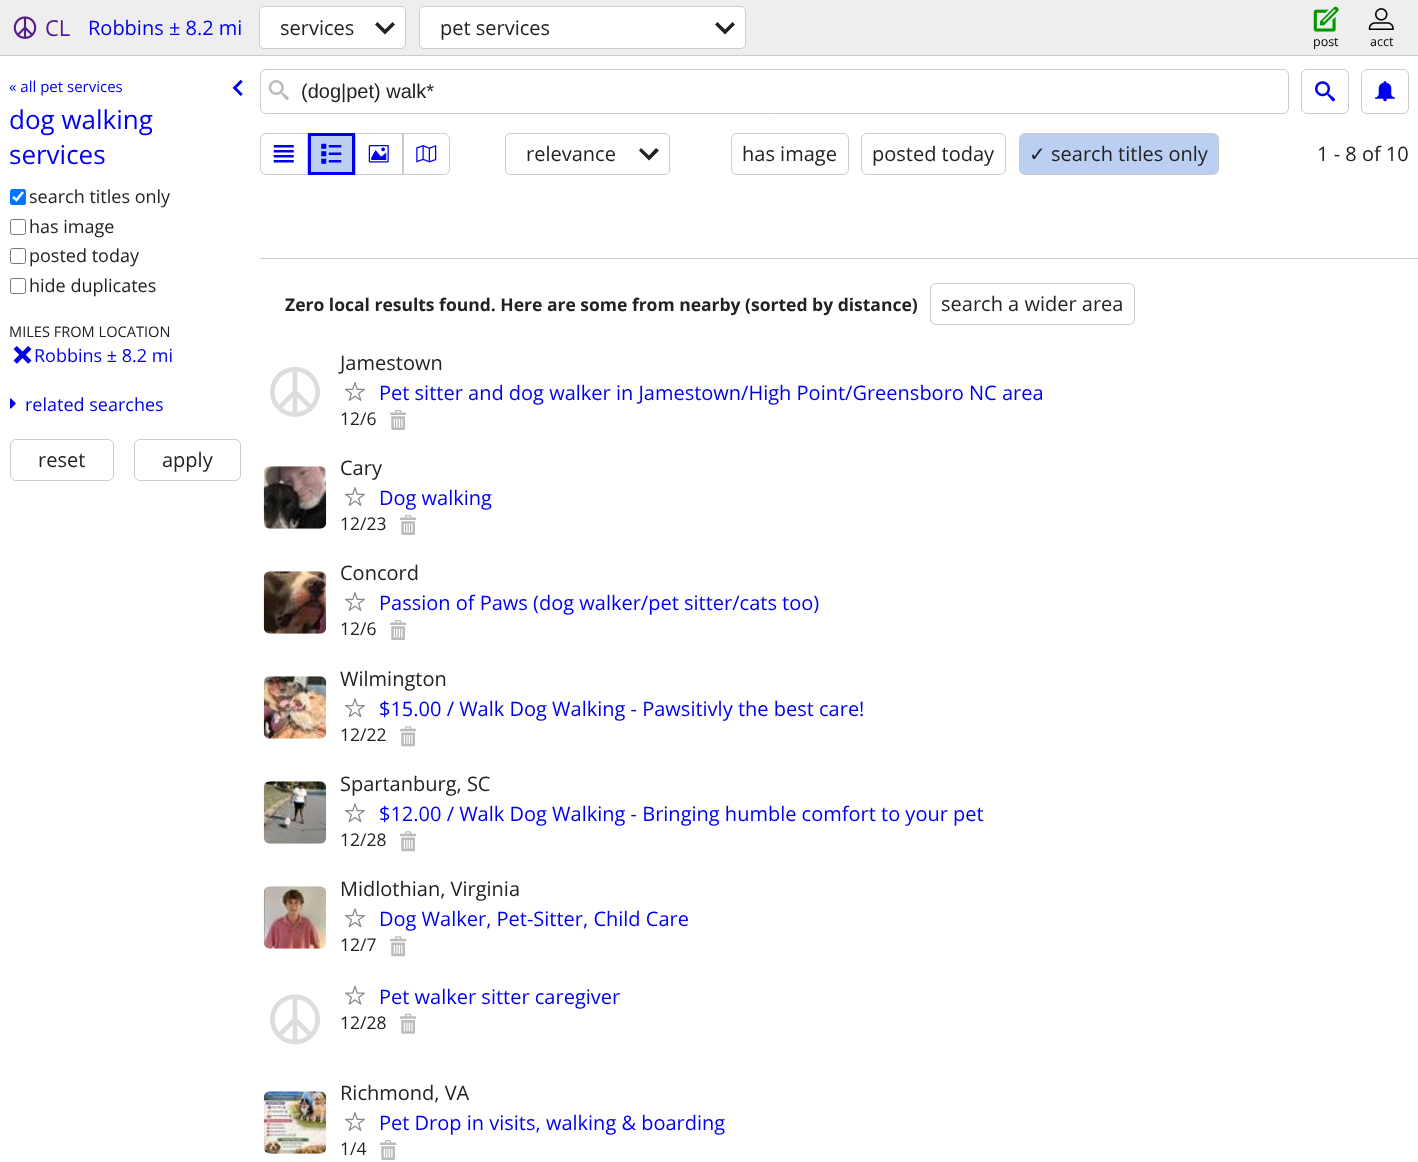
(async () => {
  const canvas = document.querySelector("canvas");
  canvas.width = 1418;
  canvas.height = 1162;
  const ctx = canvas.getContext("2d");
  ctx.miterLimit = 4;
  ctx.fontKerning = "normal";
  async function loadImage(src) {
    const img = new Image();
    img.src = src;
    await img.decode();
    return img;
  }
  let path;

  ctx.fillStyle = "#ffffff";
  ctx.fillRect(0, 0, 1418, 1162);
  ctx.fillStyle = "#eeeeee";
  ctx.fillRect(0, 0, 1418, 55);
  ctx.fillStyle = "#cccccc";
  ctx.fillRect(0, 55, 1418, 1);
  ctx.drawImage(await loadImage("img/1.png"), 13, 16, 24, 23);
  ctx.fillStyle = "#ffffff";
  ctx.beginPath();
  ctx.roundRect(259.5, 6.5, 146, 42, 4.5);
  ctx.fill();
  ctx.strokeStyle = "#cccccc";
  ctx.stroke();
  ctx.fillStyle = "#222222";
  path = new Path2D("M395 24.5L392.5 22L385 29.5L377.5 22L375 24.5L385 34.5Z");
  ctx.fill(path);
  ctx.fillStyle = "#ffffff";
  ctx.beginPath();
  ctx.roundRect(419.5, 6.5, 326, 42, 4.5);
  ctx.fill();
  ctx.stroke();
  ctx.fillStyle = "#222222";
  path = new Path2D("M735 24.5L732.5 22L725 29.5L717.5 22L715 24.5L725 34.5Z");
  ctx.fill(path);
  ctx.drawImage(await loadImage("img/2.png"), 1313, 6, 26, 26);
  ctx.drawImage(await loadImage("img/3.png"), 1368, 8, 26, 22);
  ctx.drawImage(await loadImage("img/4.png"), 232, 79, 11, 17);
  ctx.fillStyle = "#0075ff";
  ctx.beginPath();
  ctx.roundRect(10, 189, 16, 16, 2.5);
  ctx.fill();
  path = new Path2D("M13 197L16.5 200L23 192");
  ctx.strokeStyle = "#ffffff";
  ctx.lineWidth = 2.6;
  ctx.stroke(path);
  ctx.beginPath();
  ctx.roundRect(10.5, 219.5, 15, 15, 2);
  ctx.strokeStyle = "#767676";
  ctx.lineWidth = 1;
  ctx.stroke();
  ctx.beginPath();
  ctx.roundRect(10.5, 248.5, 15, 15, 2);
  ctx.stroke();
  ctx.beginPath();
  ctx.roundRect(10.5, 278.5, 15, 15, 2);
  ctx.stroke();
  ctx.drawImage(await loadImage("img/5.png"), 13, 346, 19, 18);
  ctx.drawImage(await loadImage("img/6.png"), 10, 398, 6, 11);
  ctx.beginPath();
  ctx.roundRect(10.5, 439.5, 103, 41, 5.5);
  ctx.strokeStyle = "#cccccc";
  ctx.stroke();
  ctx.beginPath();
  ctx.roundRect(134.5, 439.5, 106, 41, 5.5);
  ctx.stroke();
  ctx.beginPath();
  ctx.roundRect(260.5, 69.5, 1028, 44, 5.5);
  ctx.stroke();
  ctx.drawImage(await loadImage("img/7.png"), 268, 80, 21, 20);
  ctx.beginPath();
  ctx.roundRect(1301.5, 69.5, 47, 44, 5.5);
  ctx.stroke();
  ctx.drawImage(await loadImage("img/8.png"), 1315, 81, 20, 21);
  ctx.beginPath();
  ctx.roundRect(1361.5, 69.5, 47, 44, 5.5);
  ctx.stroke();
  ctx.drawImage(await loadImage("img/9.png"), 1375, 81, 20, 21);
  ctx.beginPath();
  ctx.roundRect(260.5, 133.5, 47, 41, [5.5, 0, 0, 5.5]);
  ctx.stroke();
  ctx.drawImage(await loadImage("img/10.png"), 273, 145, 21, 18);
  ctx.fillStyle = "#bacff2";
  ctx.beginPath();
  ctx.rect(309.5, 134.5, 44, 39);
  ctx.fill();
  ctx.strokeStyle = "#0000ee";
  ctx.lineWidth = 3;
  ctx.stroke();
  ctx.drawImage(await loadImage("img/11.png"), 321, 143, 21, 21);
  ctx.strokeStyle = "#cccccc";
  ctx.lineWidth = 1;
  ctx.strokeRect(355.5, 133.5, 47, 41);
  ctx.drawImage(await loadImage("img/12.png"), 368, 145, 21, 18);
  ctx.beginPath();
  ctx.roundRect(403.5, 133.5, 46, 41, [0, 5.5, 5.5, 0]);
  ctx.stroke();
  ctx.drawImage(await loadImage("img/13.png"), 416, 145, 21, 18);
  ctx.beginPath();
  ctx.roundRect(505.5, 133.5, 164, 41, 4.5);
  ctx.stroke();
  ctx.fillStyle = "#222222";
  path = new Path2D("M659 150.5L656 148L649 155.5L641 148L639 150.5L649 160.5Z");
  ctx.fill(path);
  ctx.beginPath();
  ctx.roundRect(731.5, 133.5, 117, 41, 5.5);
  ctx.stroke();
  ctx.beginPath();
  ctx.roundRect(861.5, 133.5, 144, 41, 5.5);
  ctx.stroke();
  ctx.fillStyle = "#bacff2";
  ctx.beginPath();
  ctx.roundRect(1019.5, 133.5, 199, 41, 5.5);
  ctx.fill();
  ctx.stroke();
  ctx.fillStyle = "#cccccc";
  ctx.fillRect(260, 258, 1158, 1);
  ctx.beginPath();
  ctx.roundRect(930.5, 283.5, 204, 41, 5.5);
  ctx.stroke();
  ctx.drawImage(await loadImage("img/14.png"), 270, 367, 50, 50);
  ctx.drawImage(await loadImage("img/15.png"), 345, 382, 20, 19);
  ctx.drawImage(await loadImage("img/16.png"), 390, 410, 17, 20);
  ctx.drawImage(await loadImage("img/17.png"), 263, 466, 64, 63);
  ctx.drawImage(await loadImage("img/15.png"), 345, 487, 20, 19);
  ctx.drawImage(await loadImage("img/16.png"), 400, 515, 17, 20);
  ctx.drawImage(await loadImage("img/18.png"), 263, 571, 64, 63);
  ctx.drawImage(await loadImage("img/15.png"), 345, 592, 20, 19);
  ctx.drawImage(await loadImage("img/16.png"), 390, 620, 17, 20);
  ctx.drawImage(await loadImage("img/19.png"), 263, 676, 64, 63);
  ctx.drawImage(await loadImage("img/20.png"), 345, 698, 20, 20);
  ctx.drawImage(await loadImage("img/21.png"), 400, 726, 17, 21);
  ctx.drawImage(await loadImage("img/22.png"), 263, 781, 64, 63);
  ctx.drawImage(await loadImage("img/20.png"), 345, 803, 20, 20);
  ctx.drawImage(await loadImage("img/21.png"), 400, 831, 17, 21);
  ctx.drawImage(await loadImage("img/23.png"), 263, 886, 64, 63);
  ctx.drawImage(await loadImage("img/20.png"), 345, 908, 20, 20);
  ctx.drawImage(await loadImage("img/21.png"), 390, 936, 17, 21);
  ctx.drawImage(await loadImage("img/24.png"), 270, 994, 50, 51);
  ctx.drawImage(await loadImage("img/25.png"), 345, 985, 20, 20);
  ctx.drawImage(await loadImage("img/26.png"), 400, 1013, 17, 21);
  ctx.drawImage(await loadImage("img/27.png"), 263, 1091, 64, 63);
  ctx.drawImage(await loadImage("img/15.png"), 345, 1112, 20, 19);
  ctx.drawImage(await loadImage("img/16.png"), 380, 1140, 17, 20);
  ctx.font = "22px Open Sans";
  ctx.fillStyle = "#551a8b";
  ctx.fillText("CL", 45, 36);
  ctx.font = "20px Open Sans";
  ctx.fillStyle = "#0000ee";
  ctx.fillText("Robbins ± 8.2 mi", 88, 35);
  ctx.fillStyle = "#222222";
  ctx.fillText("services", 280, 35);
  ctx.fillText("pet services", 440, 35);
  ctx.font = "12.5px Open Sans";
  ctx.fillStyle = "#000000";
  ctx.fillText("post", 1313, 46);
  ctx.fillText("acct", 1370, 46);
  ctx.font = "15px Open Sans";
  ctx.fillStyle = "#0000ee";
  ctx.fillText("« all pet services", 9, 92);
  ctx.font = "26px Open Sans";
  ctx.fillText("dog walking", 9, 129);
  ctx.fillText("services", 9, 164);
  ctx.font = "18px Open Sans";
  ctx.fillStyle = "#222222";
  for (const [text, x, y] of [
    ["search titles only", 29, 203],
    ["has image", 29, 233],
    ["posted today", 29, 262],
    ["hide duplicates", 29, 292],
  ]) {
    ctx.fillText(text, x, y);
  }
  ctx.font = "14.6px Open Sans";
  ctx.fillText("MILES FROM LOCATION", 9, 337);
  ctx.font = "18px Open Sans";
  ctx.fillStyle = "#0000ee";
  ctx.fillText("Robbins ± 8.2 mi", 34, 362);
  ctx.fillText("related searches", 25, 411);
  ctx.font = "20px Open Sans";
  ctx.fillStyle = "#222222";
  ctx.fillText("reset", 38, 467);
  ctx.fillText("apply", 162, 467);
  ctx.font = "20px Liberation Sans";
  ctx.fillText("(dog|pet) walk*", 301, 98);
  ctx.font = "20px Open Sans";
  for (const [text, x, y] of [
    ["relevance", 526, 161],
    ["has image", 742, 161],
    ["posted today", 872, 161],
  ]) {
    ctx.fillText(text, x, y);
  }
  ctx.font = "20px DejaVu Sans";
  ctx.fillText("✓", 1029, 161);
  ctx.font = "20px Open Sans";
  ctx.fillText("search titles only", 1051, 161);
  ctx.fillText("1 - 8 of 10", 1317, 161);
  ctx.font = "bold 17.5px Open Sans";
  ctx.fillText("Zero local results found. Here are some from nearby (sorted by distance)", 285, 311);
  ctx.font = "20px Open Sans";
  ctx.fillText("search a wider area", 941, 311);
  ctx.fillText("Jamestown", 340, 370);
  ctx.fillStyle = "#0000ee";
  ctx.fillText("Pet sitter and dog walker in Jamestown/High Point/Greensboro NC area", 379, 400);
  ctx.font = "17.5px Open Sans";
  ctx.fillStyle = "#222222";
  ctx.fillText("12/6", 340, 425);
  ctx.font = "20px Open Sans";
  ctx.fillText("Cary", 340, 475);
  ctx.fillStyle = "#0000ee";
  ctx.fillText("Dog walking", 379, 505);
  ctx.font = "17.5px Open Sans";
  ctx.fillStyle = "#222222";
  ctx.fillText("12/23", 340, 530);
  ctx.font = "20px Open Sans";
  ctx.fillText("Concord", 340, 580);
  ctx.fillStyle = "#0000ee";
  ctx.fillText("Passion of Paws (dog walker/pet sitter/cats too)", 379, 610);
  ctx.font = "17.5px Open Sans";
  ctx.fillStyle = "#222222";
  ctx.fillText("12/6", 340, 635);
  ctx.font = "20px Open Sans";
  ctx.fillText("Wilmington", 340, 686);
  ctx.fillStyle = "#0000ee";
  ctx.fillText("$15.00 / Walk Dog Walking - Pawsitivly the best care!", 379, 716);
  ctx.font = "17.5px Open Sans";
  ctx.fillStyle = "#222222";
  ctx.fillText("12/22", 340, 741);
  ctx.font = "20px Open Sans";
  ctx.fillText("Spartanburg, SC", 340, 791);
  ctx.fillStyle = "#0000ee";
  ctx.fillText("$12.00 / Walk Dog Walking - Bringing humble comfort to your pet", 379, 821);
  ctx.font = "17.5px Open Sans";
  ctx.fillStyle = "#222222";
  ctx.fillText("12/28", 340, 846);
  ctx.font = "20px Open Sans";
  ctx.fillText("Midlothian, Virginia", 340, 896);
  ctx.fillStyle = "#0000ee";
  ctx.fillText("Dog Walker, Pet-Sitter, Child Care", 379, 926);
  ctx.font = "17.5px Open Sans";
  ctx.fillStyle = "#222222";
  ctx.fillText("12/7", 340, 951);
  ctx.font = "20px Open Sans";
  ctx.fillStyle = "#0000ee";
  ctx.fillText("Pet walker sitter caregiver", 379, 1004);
  ctx.font = "17.5px Open Sans";
  ctx.fillStyle = "#222222";
  ctx.fillText("12/28", 340, 1029);
  ctx.font = "20px Open Sans";
  ctx.fillText("Richmond, VA", 340, 1100);
  ctx.fillStyle = "#0000ee";
  ctx.fillText("Pet Drop in visits, walking & boarding", 379, 1130);
  ctx.font = "17.5px Open Sans";
  ctx.fillStyle = "#222222";
  ctx.fillText("1/4", 340, 1155);
})();
